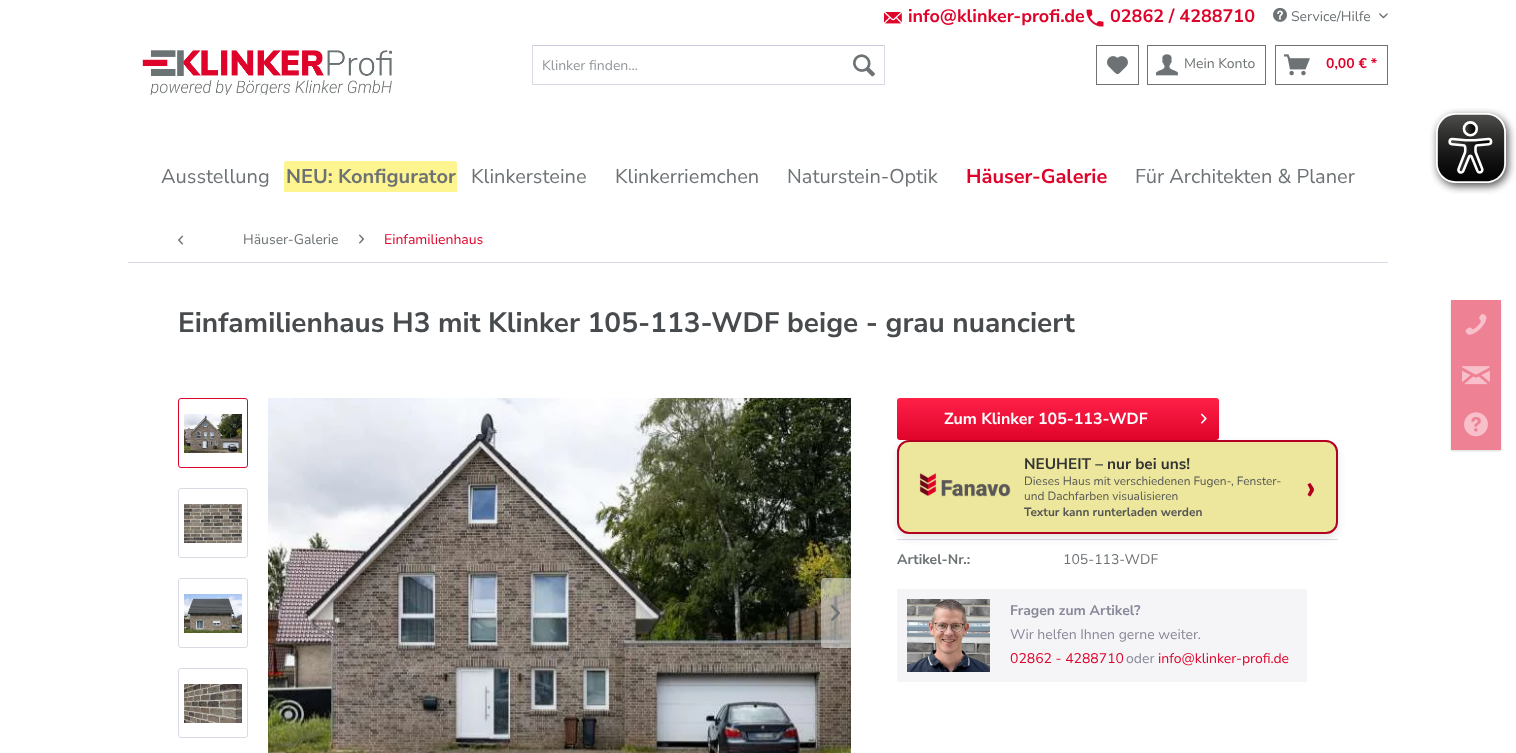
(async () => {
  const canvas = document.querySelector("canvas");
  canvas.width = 1516;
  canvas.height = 753;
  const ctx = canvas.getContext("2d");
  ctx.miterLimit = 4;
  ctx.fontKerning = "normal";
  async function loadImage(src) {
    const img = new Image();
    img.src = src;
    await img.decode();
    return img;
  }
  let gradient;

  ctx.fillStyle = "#ffffff";
  ctx.fillRect(0, 0, 1516, 753);
  ctx.drawImage(await loadImage("img/1.png"), 883, 12, 20, 12);
  ctx.drawImage(await loadImage("img/2.png"), 1085, 8, 20, 19);
  ctx.drawImage(await loadImage("img/3.png"), 1273, 7, 14, 15);
  ctx.drawImage(await loadImage("img/4.png"), 1379, 13, 9, 6);
  ctx.drawImage(await loadImage("img/5.png"), 142, 50, 250, 45);
  for (const [x, y, w, h, color] of [
    [532, 45, 353, 1, "#cbcbdb"],
    [884, 45, 1, 40, "#dadae5"],
    [532, 84, 353, 1, "#dadae5"],
    [532, 45, 1, 40, "#dadae5"],
  ]) {
    ctx.fillStyle = color;
    ctx.fillRect(x, y, w, h);
  }
  ctx.drawImage(await loadImage("img/6.png"), 853, 54, 22, 23);
  ctx.strokeStyle = "#6d7275";
  ctx.strokeRect(1096.5, 45.5, 42, 39);
  ctx.drawImage(await loadImage("img/7.png"), 1107, 56, 21, 19);
  ctx.strokeRect(1147.5, 45.5, 118, 39);
  ctx.drawImage(await loadImage("img/8.png"), 1156, 54, 22, 22);
  ctx.strokeRect(1275.5, 45.5, 112, 39);
  ctx.drawImage(await loadImage("img/9.png"), 1284, 54, 26, 22);
  ctx.fillStyle = "#fef590";
  ctx.beginPath();
  ctx.roundRect(284, 161, 173, 31, [3, 3, 0, 0]);
  ctx.fill();
  ctx.fillStyle = "#dadae5";
  ctx.fillRect(128, 262, 1260, 1);
  ctx.drawImage(await loadImage("img/10.png"), 178, 235, 6, 10);
  ctx.drawImage(await loadImage("img/11.png"), 359, 234, 5, 10);
  ctx.beginPath();
  ctx.roundRect(178.5, 398.5, 69, 69, 2.5);
  ctx.strokeStyle = "#df032a";
  ctx.stroke();
  ctx.drawImage(await loadImage("img/12.png"), 184, 414, 58, 39);
  ctx.beginPath();
  ctx.roundRect(178.5, 488.5, 69, 69, 2.5);
  ctx.strokeStyle = "#dadae5";
  ctx.stroke();
  ctx.drawImage(await loadImage("img/13.png"), 184, 504, 58, 39);
  ctx.beginPath();
  ctx.roundRect(178.5, 578.5, 69, 69, 2.5);
  ctx.stroke();
  ctx.drawImage(await loadImage("img/14.png"), 184, 594, 58, 39);
  ctx.beginPath();
  ctx.roundRect(178.5, 668.5, 69, 69, 2.5);
  ctx.stroke();
  ctx.drawImage(await loadImage("img/15.png"), 184, 684, 58, 39);
  ctx.drawImage(await loadImage("img/16.png"), 268, 398, 583, 355);
  ctx.fillStyle = "rgba(255, 255, 255, 0.5)";
  ctx.beginPath();
  ctx.roundRect(822, 579, 28, 68, [2, 0, 0, 2]);
  ctx.fill();
  ctx.beginPath();
  ctx.roundRect(821.5, 578.5, 29, 69, [2.5, 0, 0, 2.5]);
  ctx.strokeStyle = "rgba(255, 255, 255, 0.5)";
  ctx.stroke();
  ctx.drawImage(await loadImage("img/17.png"), 831, 605, 9, 16);
  ctx.fillStyle = "#dadae5";
  ctx.fillRect(897, 539, 441, 1);
  ctx.fillStyle = "rgba(0, 0, 0, 0.1)";
  ctx.filter = "blur(4px)";
  ctx.beginPath();
  ctx.roundRect(897, 444, 441, 94, 12);
  ctx.fill();
  ctx.filter = "none";
  gradient = ctx.createLinearGradient(1058, 398, 1058, 440);
  gradient.addColorStop(0, "#ff2048");
  gradient.addColorStop(1, "#df032a");
  ctx.fillStyle = gradient;
  ctx.beginPath();
  ctx.roundRect(897, 398, 322, 42, 3);
  ctx.fill();
  ctx.drawImage(await loadImage("img/18.png"), 1201, 413, 6, 11);
  ctx.fillStyle = "#ece79c";
  ctx.beginPath();
  ctx.roundRect(898, 441, 439, 92, 11);
  ctx.fill();
  ctx.strokeStyle = "#b40020";
  ctx.lineWidth = 2;
  ctx.stroke();
  ctx.drawImage(await loadImage("img/19.png"), 919, 473, 92, 24);
  ctx.fillStyle = "#f5f5f8";
  ctx.fillRect(897, 589, 410, 93);
  ctx.drawImage(await loadImage("img/20.png"), 907, 599, 83, 73);
  ctx.drawImage(await loadImage("img/21.png"), 1430, 108, 86, 86);
  ctx.fillStyle = "rgba(0, 0, 0, 0.15)";
  ctx.filter = "blur(1px)";
  ctx.beginPath();
  ctx.rect(1451, 301, 50, 150);
  ctx.fill();
  ctx.filter = "none";
  ctx.fillStyle = "#ef8195";
  ctx.fillRect(1451, 300, 50, 150);
  ctx.drawImage(await loadImage("img/22.png"), 1465, 314, 22, 21);
  ctx.drawImage(await loadImage("img/23.png"), 1462, 366, 28, 19);
  ctx.drawImage(await loadImage("img/24.png"), 1464, 412, 24, 25);
  ctx.font = "bold 18px Nunito Sans";
  ctx.fillStyle = "#df032a";
  ctx.fillText("info@klinker-profi.de", 908, 22);
  ctx.fillText("02862 / 4288710", 1110, 22);
  ctx.font = "14px Nunito Sans";
  ctx.fillStyle = "#6d7275";
  ctx.fillText("Service/Hilfe", 1291, 21);
  ctx.fillStyle = "#94989b";
  ctx.fillText("Klinker finden...", 542, 70);
  ctx.fillStyle = "#6d7275";
  ctx.fillText("Mein Konto", 1184, 68);
  ctx.font = "bold 14px Nunito Sans";
  ctx.fillStyle = "#df032a";
  ctx.fillText("0,00 € *", 1326, 68);
  ctx.font = "20px Nunito Sans";
  ctx.fillStyle = "#6d7275";
  ctx.fillText("Ausstellung", 161, 183);
  ctx.font = "bold 20px Nunito Sans";
  ctx.fillText("NEU: Konfigurator", 286, 183);
  ctx.font = "20px Nunito Sans";
  for (const [text, x, y] of [
    ["Klinkersteine", 471, 183],
    ["Klinkerriemchen", 615, 183],
    ["Naturstein-Optik", 787, 183],
  ]) {
    ctx.fillText(text, x, y);
  }
  ctx.font = "bold 20px Nunito Sans";
  ctx.fillStyle = "#df032a";
  ctx.fillText("Häuser-Galerie", 966, 183);
  ctx.font = "20px Nunito Sans";
  ctx.fillStyle = "#6d7275";
  ctx.fillText("Für Architekten & Planer", 1135, 183);
  ctx.font = "14px Nunito Sans";
  ctx.fillText("Häuser-Galerie", 243, 244);
  ctx.fillStyle = "#df032a";
  ctx.fillText("Einfamilienhaus", 384, 244);
  ctx.font = "bold 28px Nunito Sans";
  ctx.fillStyle = "#484b4d";
  ctx.fillText("Einfamilienhaus H3 mit Klinker 105-113-WDF beige - grau nuanciert", 178, 332);
  ctx.font = "bold 16px Nunito Sans";
  ctx.fillStyle = "#ffffff";
  ctx.fillText("Zum Klinker 105-113-WDF", 944, 424);
  ctx.font = "bold 15.4px Nunito Sans";
  ctx.fillStyle = "#333333";
  ctx.fillText("NEUHEIT – nur bei uns!", 1024, 469);
  ctx.font = "11.9px Nunito Sans";
  ctx.fillStyle = "#555555";
  ctx.fillText("Dieses Haus mit verschiedenen Fugen-, Fenster-", 1024, 485);
  ctx.fillText("und Dachfarben visualisieren", 1024, 500);
  ctx.font = "bold 11.9px Nunito Sans";
  ctx.fillText("Textur kann runterladen werden", 1024, 516);
  ctx.font = "bold 35px Nunito Sans";
  ctx.fillStyle = "#b40020";
  ctx.fillText("›", 1306, 499);
  ctx.font = "bold 14px Nunito Sans";
  ctx.fillStyle = "#6d7275";
  ctx.fillText("Artikel-Nr.:", 897, 564);
  ctx.font = "14px Nunito Sans";
  ctx.fillText("105-113-WDF", 1063, 564);
  ctx.font = "bold 14px Nunito Sans";
  ctx.fillStyle = "#888899";
  ctx.fillText("Fragen zum Artikel?", 1010, 615);
  ctx.font = "14px Nunito Sans";
  ctx.fillText("Wir helfen Ihnen gerne weiter.", 1010, 639);
  ctx.fillStyle = "#df032a";
  ctx.fillText("02862 - 4288710", 1010, 663);
  ctx.fillStyle = "#888899";
  ctx.fillText("oder", 1126, 663);
  ctx.fillStyle = "#df032a";
  ctx.fillText("info@klinker-profi.de", 1158, 663);
})();
